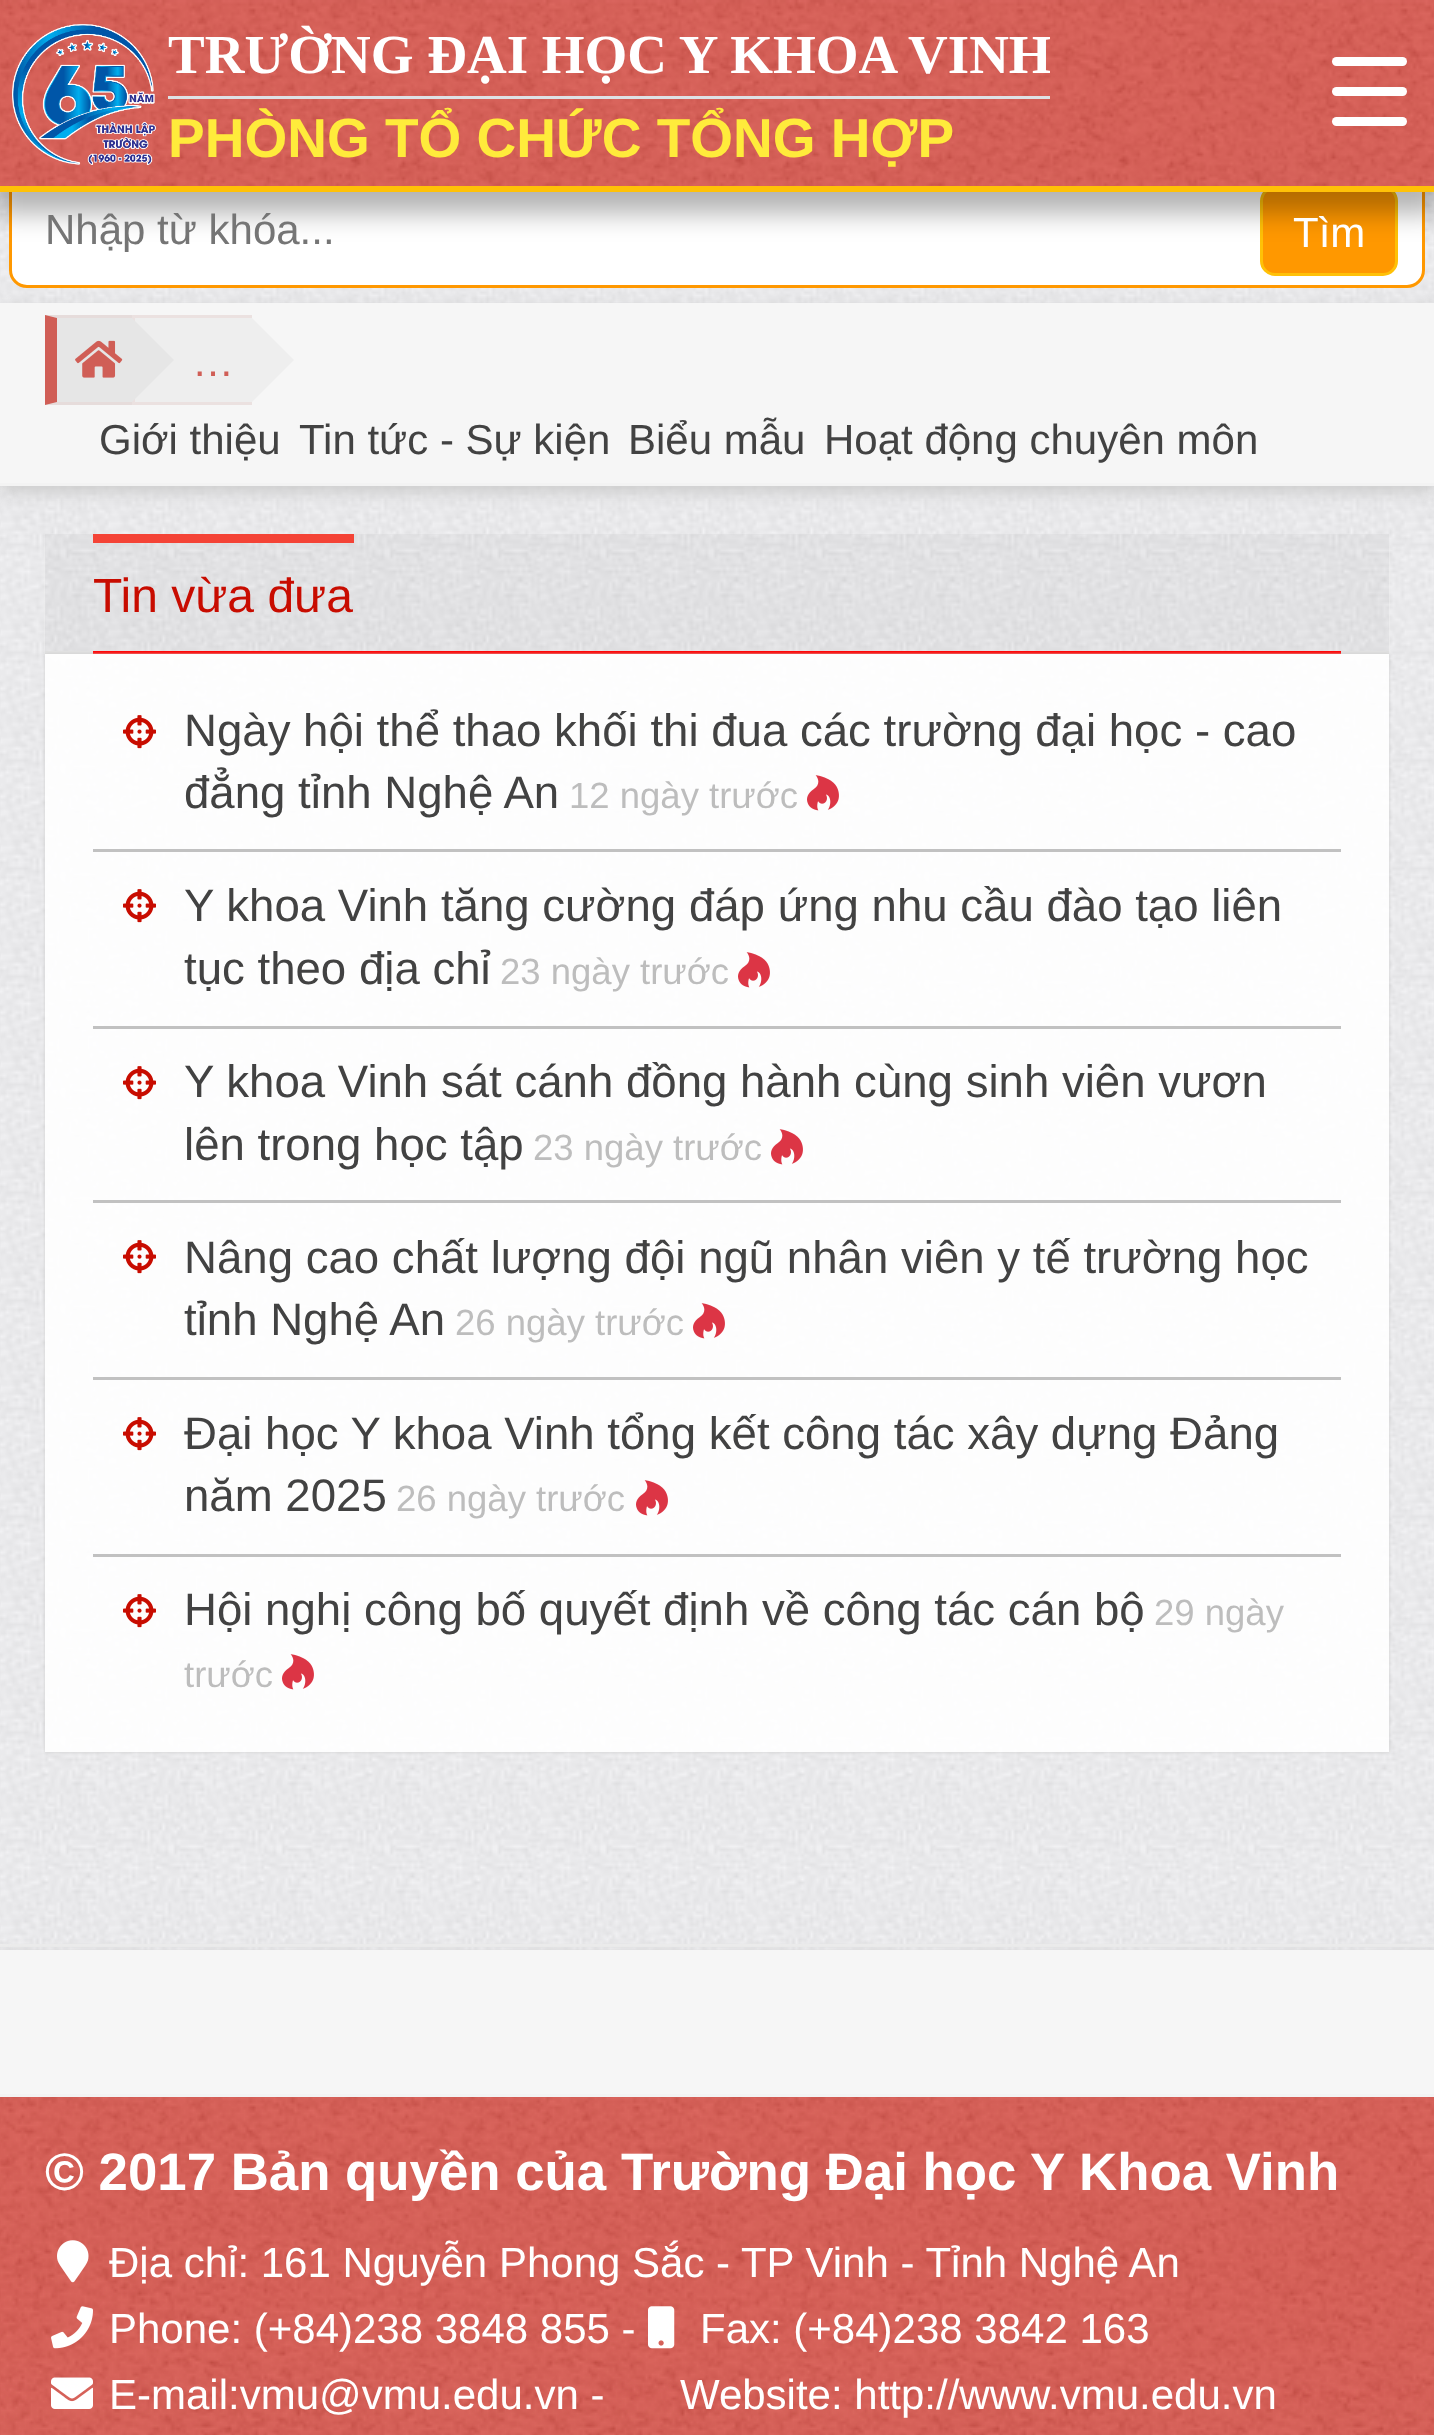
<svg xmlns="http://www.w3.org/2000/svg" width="1434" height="2435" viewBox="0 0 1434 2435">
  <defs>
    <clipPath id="clip1"><rect x="168" y="9" width="882" height="171"/></clipPath>
    <clipPath id="clip2"><rect x="45" y="204" width="1224" height="48"/></clipPath>
    <clipPath id="clip3"><path d="M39 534H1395V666H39ZM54 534H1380C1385 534 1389 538 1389 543V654H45V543C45 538 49 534 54 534Z" clip-rule="evenodd"/></clipPath>
    <clipPath id="clip4"><path d="M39 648H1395V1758H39ZM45 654H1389V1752H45Z" clip-rule="evenodd"/></clipPath>
  </defs>
  <rect width="100%" height="100%" fill="rgb(255,255,255)"/>
  <image x="0" y="192" width="1434" height="1758" href="pic1.png"/>
  <rect x="0" y="309" width="1434" height="183" fill="rgb(204,204,204)" filter="blur(7.5px)"/>
  <rect x="10.5" y="169.5" width="1413" height="117" rx="16.5" fill="rgb(255,255,255)" stroke="rgb(255,152,0)" stroke-width="3"/>
  <rect x="1261.5" y="187.5" width="135" height="87" rx="13.5" fill="rgb(255,152,0)" stroke="rgb(255,193,7)" stroke-width="3"/>
  <rect x="-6" y="9" width="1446" height="204" fill="rgba(0,0,0,0.3)" filter="blur(13.5px)"/>
  <image x="0" y="0" width="1434" height="186" href="pic2.png"/>
  <rect x="0" y="186" width="1434" height="6" fill="rgb(255,193,7)"/>
  <image x="12" y="24" width="144" height="141" href="pic3.png"/>
  <g clip-path="url(#clip1)">
    <text x="168" y="73" font-family="Liberation Serif" font-size="55" font-weight="bold" fill="rgb(255,255,255)">TRƯỜNG ĐẠI HỌC Y KHOA VINH</text>
  </g>
  <rect x="168" y="96" width="882" height="3" fill="rgb(222,226,230)"/>
  <text x="168" y="157" font-family="Liberation Sans" font-size="55" font-weight="bold" fill="rgb(255,235,59)">PHÒNG TỔ CHỨC TỔNG HỢP</text>
  <rect x="1332" y="57" width="75" height="9" rx="4.5" fill="rgb(255,255,255)"/>
  <rect x="1332" y="87" width="75" height="9" rx="4.5" fill="rgb(255,255,255)"/>
  <rect x="1332" y="117" width="75" height="9" rx="4.5" fill="rgb(255,255,255)"/>
  <g clip-path="url(#clip2)">
    <text x="45" y="244" font-family="Liberation Sans" font-size="42" fill="rgb(117,117,117)">Nhập từ khóa...</text>
  </g>
  <text x="1293" y="247" font-family="Liberation Sans" font-size="42" fill="rgb(255,255,255)">Tìm</text>
  <rect x="0" y="303" width="1434" height="180" fill="rgb(246,246,246)"/>
  <rect x="0" y="483" width="1434" height="3" fill="rgb(243,243,243)"/>
  <rect x="45" y="315" width="87" height="90" fill="rgb(230,230,230)"/>
  <path d="M45 315H132V318H57Z" fill="rgb(230,220,219)"/>
  <path d="M132 405H45L57 402H132Z" fill="rgb(230,220,219)"/>
  <path d="M45 405V315L57 318V402Z" fill="rgb(208,94,86)"/>
  <image x="75" y="340" width="48" height="38" href="pic4.png"/>
  <rect x="132" y="315" width="120" height="90" fill="rgb(238,238,238)"/>
  <path d="M132 315H252V318H135Z" fill="rgb(235,225,224)"/>
  <path d="M252 405H132L135 402H252Z" fill="rgb(235,225,224)"/>
  <path d="M132 405V315L135 318V402Z" fill="rgba(231,202,200,0.36)"/>
  <path d="M132 402V318L174 360Z" fill="rgb(230,230,230)"/>
  <text x="192" y="376" font-family="Liberation Sans" font-size="42" fill="rgb(208,94,86)">…</text>
  <path d="M252 402V318L294 360Z" fill="rgb(238,238,238)"/>
  <g font-family="Liberation Sans" font-size="42" fill="rgb(66,66,66)">
    <text x="99" y="454">Giới thiệu</text>
    <text x="299" y="454">Tin tức - Sự kiện</text>
    <text x="628" y="454">Biểu mẫu</text>
    <text x="824" y="454">Hoạt động chuyên môn</text>
  </g>
  <g clip-path="url(#clip3)">
    <rect x="45" y="540" width="1344" height="120" rx="9" fill="rgb(238,238,238)" filter="blur(1.5px)"/>
  </g>
  <rect x="45" y="534" width="1344" height="117" fill="rgba(0,0,0,0.03)"/>
  <rect x="45" y="651" width="1344" height="3" fill="rgb(224,224,224)"/>
  <rect x="93" y="534" width="261" height="9" fill="rgb(244,67,54)"/>
  <text x="93" y="612" font-family="Liberation Sans" font-size="48" fill="rgb(200,12,0)">Tin vừa đưa</text>
  <rect x="93" y="651" width="1248" height="3" fill="rgb(255,0,0)"/>
  <g clip-path="url(#clip4)">
    <rect x="45" y="654" width="1344" height="1098" fill="rgb(204,204,204)" filter="blur(1.5px)"/>
  </g>
  <rect x="45" y="654" width="1344" height="1098" fill="rgba(255,255,255,0.9)"/>
  <image x="123" y="715" width="33" height="34" href="pic5.png"/>
  <g font-family="Liberation Sans" font-size="45.6" fill="rgb(66,66,66)">
    <text>
      <tspan x="184" y="746">Ngày hội thể thao khối thi đua các trường đại học - cao</tspan>
      <tspan x="184" y="808">đẳng tỉnh Nghệ An</tspan>
    </text>
  </g>
  <text x="569" y="808" font-family="Liberation Sans" font-size="36.5" fill="rgb(189,189,189)">12 ngày trước</text>
  <image x="807" y="775" width="32" height="36" href="pic6.png"/>
  <rect x="93" y="849" width="1248" height="3" fill="rgb(193,193,193)"/>
  <image x="123" y="889" width="33" height="34" href="pic7.png"/>
  <g font-family="Liberation Sans" font-size="45.6" fill="rgb(66,66,66)">
    <text>
      <tspan x="184" y="921">Y khoa Vinh tăng cường đáp ứng nhu cầu đào tạo liên</tspan>
      <tspan x="184" y="984">tục theo địa chỉ</tspan>
    </text>
  </g>
  <text x="500" y="984" font-family="Liberation Sans" font-size="36.5" fill="rgb(189,189,189)">23 ngày trước</text>
  <image x="738" y="952" width="32" height="36" href="pic8.png"/>
  <rect x="93" y="1026" width="1248" height="3" fill="rgb(193,193,193)"/>
  <image x="123" y="1066" width="33" height="34" href="pic9.png"/>
  <g font-family="Liberation Sans" font-size="45.6" fill="rgb(66,66,66)">
    <text>
      <tspan x="184" y="1097">Y khoa Vinh sát cánh đồng hành cùng sinh viên vươn</tspan>
      <tspan x="184" y="1160">lên trong học tập</tspan>
    </text>
  </g>
  <text x="533" y="1160" font-family="Liberation Sans" font-size="36.5" fill="rgb(189,189,189)">23 ngày trước</text>
  <image x="771" y="1129" width="32" height="36" href="pic10.png"/>
  <rect x="93" y="1200" width="1248" height="3" fill="rgb(193,193,193)"/>
  <image x="123" y="1240" width="33" height="34" href="pic11.png"/>
  <g font-family="Liberation Sans" font-size="45.6" fill="rgb(66,66,66)">
    <text>
      <tspan x="184" y="1273">Nâng cao chất lượng đội ngũ nhân viên y tế trường học</tspan>
      <tspan x="184" y="1335">tỉnh Nghệ An</tspan>
    </text>
  </g>
  <text x="455" y="1335" font-family="Liberation Sans" font-size="36.5" fill="rgb(189,189,189)">26 ngày trước</text>
  <image x="693" y="1303" width="32" height="36" href="pic12.png"/>
  <rect x="93" y="1377" width="1248" height="3" fill="rgb(193,193,193)"/>
  <image x="123" y="1417" width="33" height="34" href="pic13.png"/>
  <g font-family="Liberation Sans" font-size="45.6" fill="rgb(66,66,66)">
    <text>
      <tspan x="184" y="1449">Đại học Y khoa Vinh tổng kết công tác xây dựng Đảng</tspan>
      <tspan x="184" y="1511">năm 2025</tspan>
    </text>
  </g>
  <text x="396" y="1511" font-family="Liberation Sans" font-size="36.5" fill="rgb(189,189,189)">26 ngày trước</text>
  <image x="636" y="1480" width="32" height="36" href="pic14.png"/>
  <rect x="93" y="1554" width="1248" height="3" fill="rgb(193,193,193)"/>
  <image x="123" y="1594" width="33" height="34" href="pic15.png"/>
  <text x="184" y="1625" font-family="Liberation Sans" font-size="45.6" fill="rgb(66,66,66)">Hội nghị công bố quyết định về công tác cán bộ</text>
  <g font-family="Liberation Sans" font-size="36.5" fill="rgb(189,189,189)">
    <text x="1154" y="1625">29 ngày</text>
    <text x="184" y="1687">trước</text>
  </g>
  <image x="282" y="1654" width="32" height="36" href="pic16.png"/>
  <rect x="0" y="1944" width="1434" height="3" fill="rgb(238,238,238)"/>
  <rect x="0" y="1956" width="1434" height="147" fill="rgb(204,204,204)" filter="blur(7.5px)"/>
  <rect x="0" y="1950" width="1434" height="144" fill="rgb(246,246,246)"/>
  <rect x="0" y="2094" width="1434" height="3" fill="rgb(243,243,243)"/>
  <image x="0" y="2097" width="1434" height="338" href="pic17.png"/>
  <text x="45" y="2190" font-family="Liberation Sans" font-size="52.8" font-weight="bold" fill="rgb(255,255,255)">© 2017 Bản quyền của Trường Đại học Y Khoa Vinh</text>
  <image x="57" y="2240" width="32" height="43" href="pic18.png"/>
  <text x="109" y="2277" font-family="Liberation Sans" font-size="42" fill="rgb(255,255,255)">Địa chỉ: 161 Nguyễn Phong Sắc - TP Vinh - Tỉnh Nghệ An</text>
  <image x="51" y="2306" width="42" height="43" href="pic19.png"/>
  <text x="109" y="2343" font-family="Liberation Sans" font-size="42" fill="rgb(255,255,255)">Phone: (+84)238 3848 855 -</text>
  <image x="648" y="2306" width="27" height="43" href="pic20.png"/>
  <text x="700" y="2343" font-family="Liberation Sans" font-size="42" fill="rgb(255,255,255)">Fax: (+84)238 3842 163</text>
  <image x="51" y="2377" width="42" height="32" href="pic21.png"/>
  <g font-family="Liberation Sans" font-size="42" fill="rgb(255,255,255)">
    <text x="109" y="2409">E-mail:vmu@vmu.edu.vn -</text>
    <text x="680" y="2409">Website: http://www.vmu.edu.vn</text>
  </g>
</svg>
